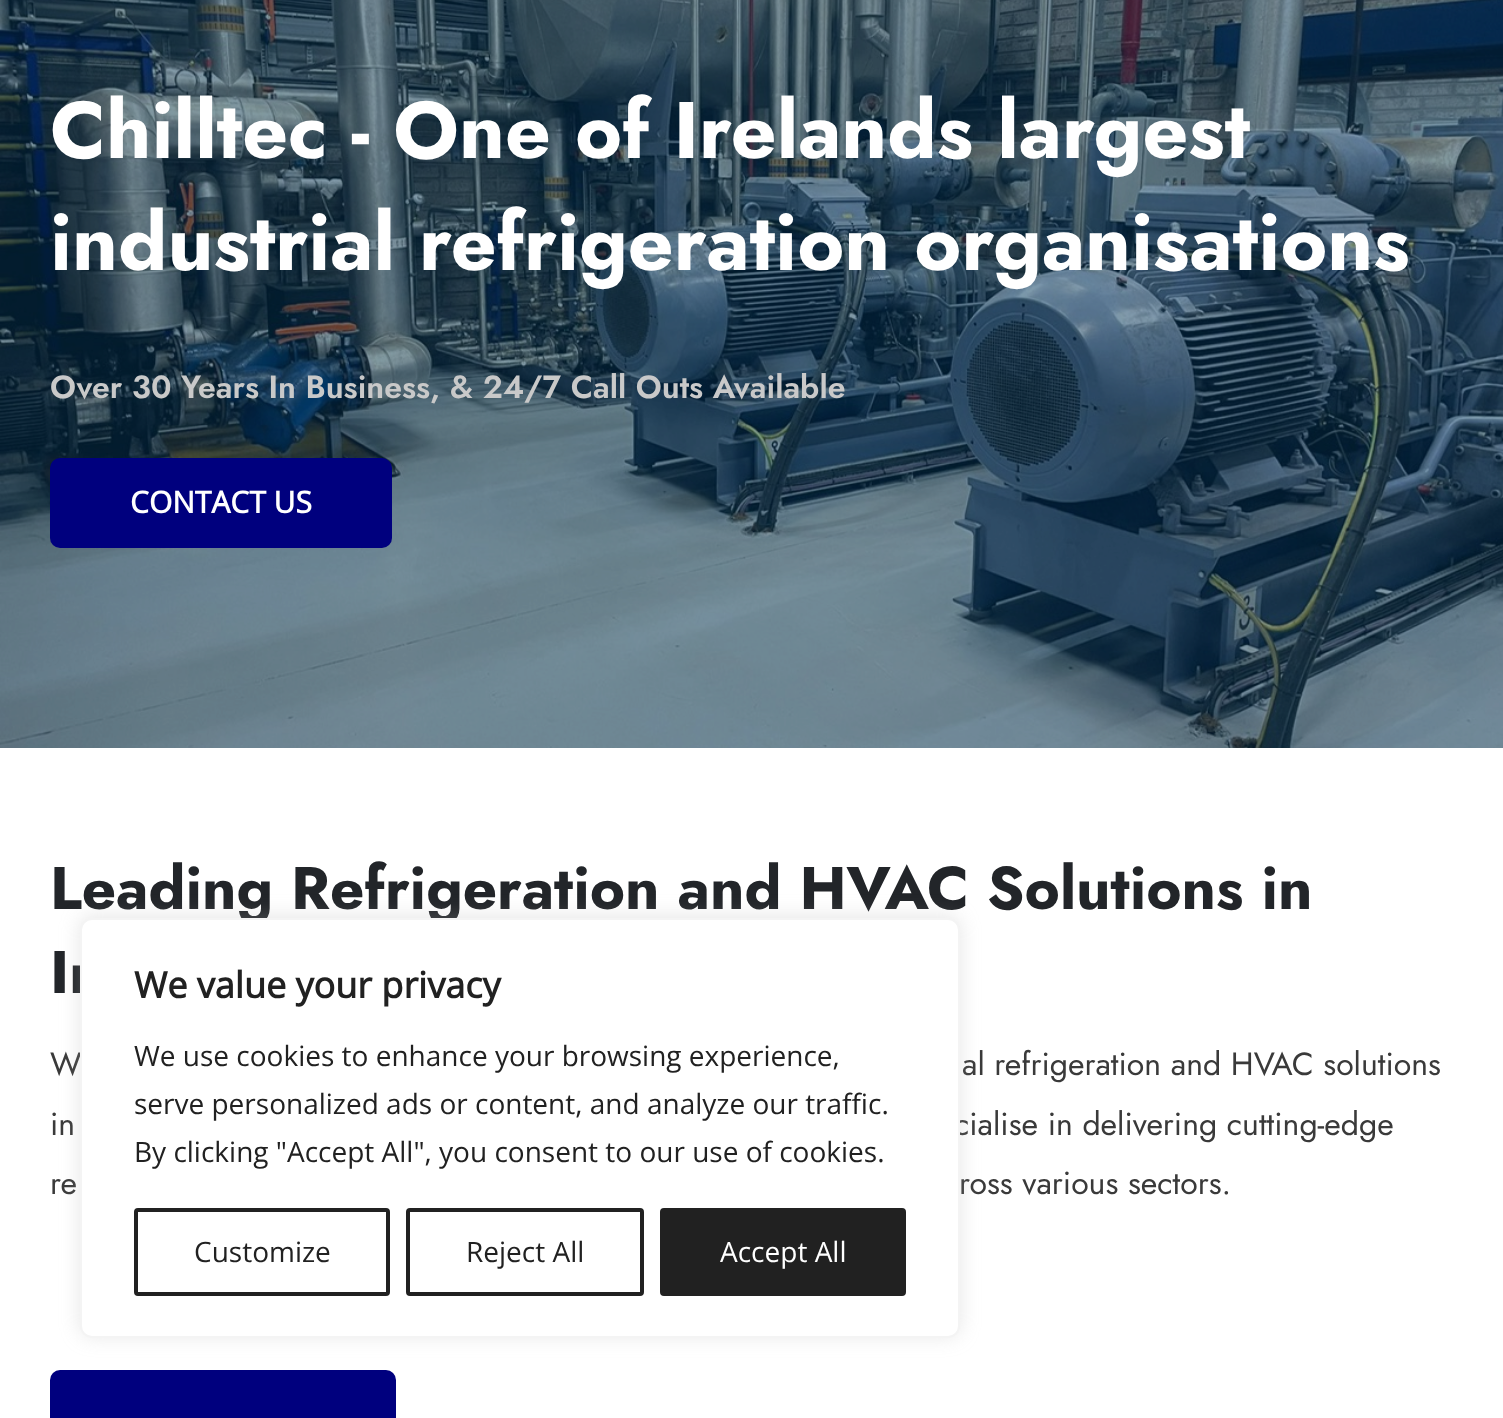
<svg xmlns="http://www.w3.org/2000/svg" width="1503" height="1418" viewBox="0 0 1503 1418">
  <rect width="100%" height="100%" fill="rgb(255,255,255)"/>
  <image x="0" y="0" width="1503" height="748" href="pic1.png"/>
  <g font-family="Jost" font-size="80" font-weight="bold" fill="rgb(255,255,255)">
    <text>
      <tspan x="50" y="158">Chilltec - One of Irelands largest</tspan>
      <tspan x="50" y="270">industrial refrigeration organisations</tspan>
    </text>
  </g>
  <text x="50" y="398" font-family="Jost" font-size="32" font-weight="600" fill="rgb(201,201,201)">Over 30 Years In Business, &amp; 24/7 Call Outs Available</text>
  <rect x="50" y="458" width="342" height="90" rx="10" fill="rgb(0,0,126)"/>
  <text x="130" y="513" font-family="Open Sans" font-size="30" font-weight="bold" fill="rgb(255,255,255)">CONTACT US</text>
  <g font-family="Jost" font-size="60" font-weight="bold" fill="rgb(34,37,41)">
    <text>
      <tspan x="50" y="909">Leading Refrigeration and HVAC Solutions in</tspan>
      <tspan x="50" y="993">Ir</tspan>
    </text>
  </g>
  <g font-family="Jost" font-size="32" fill="rgb(58,58,58)">
    <text x="50" y="1075">W</text>
    <text x="962" y="1075">al refrigeration and HVAC solutions</text>
    <text x="50" y="1135">in</text>
    <text x="954" y="1135">cialise in delivering cutting-edge</text>
    <text x="50" y="1194">re</text>
    <text x="959" y="1194">ross various sectors.</text>
  </g>
  <rect x="50" y="1370" width="346" height="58" rx="10" fill="rgb(0,0,126)"/>
  <rect x="80" y="916" width="880" height="420" rx="12" fill="rgba(172,171,171,0.3)" filter="blur(10px)"/>
  <rect x="81" y="919" width="878" height="418" rx="11" fill="rgb(255,255,255)" stroke="rgb(244,244,244)" stroke-width="2"/>
  <text x="134" y="998" font-family="Open Sans" font-size="36" font-weight="bold" fill="rgb(33,33,33)">We value your privacy</text>
  <g font-family="Open Sans" font-size="28" fill="rgb(33,33,33)">
    <text>
      <tspan x="134" y="1066">We use cookies to enhance your browsing experience,</tspan>
      <tspan x="134" y="1114">serve personalized ads or content, and analyze our traffic.</tspan>
      <tspan x="134" y="1162">By clicking "Accept All", you consent to our use of cookies.</tspan>
    </text>
  </g>
  <rect x="136" y="1210" width="252" height="84" rx="2" fill="none" stroke="rgb(33,33,33)" stroke-width="4"/>
  <text x="194" y="1262" font-family="Open Sans" font-size="28" fill="rgb(33,33,33)">Customize</text>
  <rect x="408" y="1210" width="234" height="84" rx="2" fill="none" stroke="rgb(33,33,33)" stroke-width="4"/>
  <text x="466" y="1262" font-family="Open Sans" font-size="28" fill="rgb(33,33,33)">Reject All</text>
  <rect x="662" y="1210" width="242" height="84" rx="2" fill="rgb(33,33,33)" stroke="rgb(33,33,33)" stroke-width="4"/>
  <text x="720" y="1262" font-family="Open Sans" font-size="28" fill="rgb(255,255,255)">Accept All</text>
</svg>
